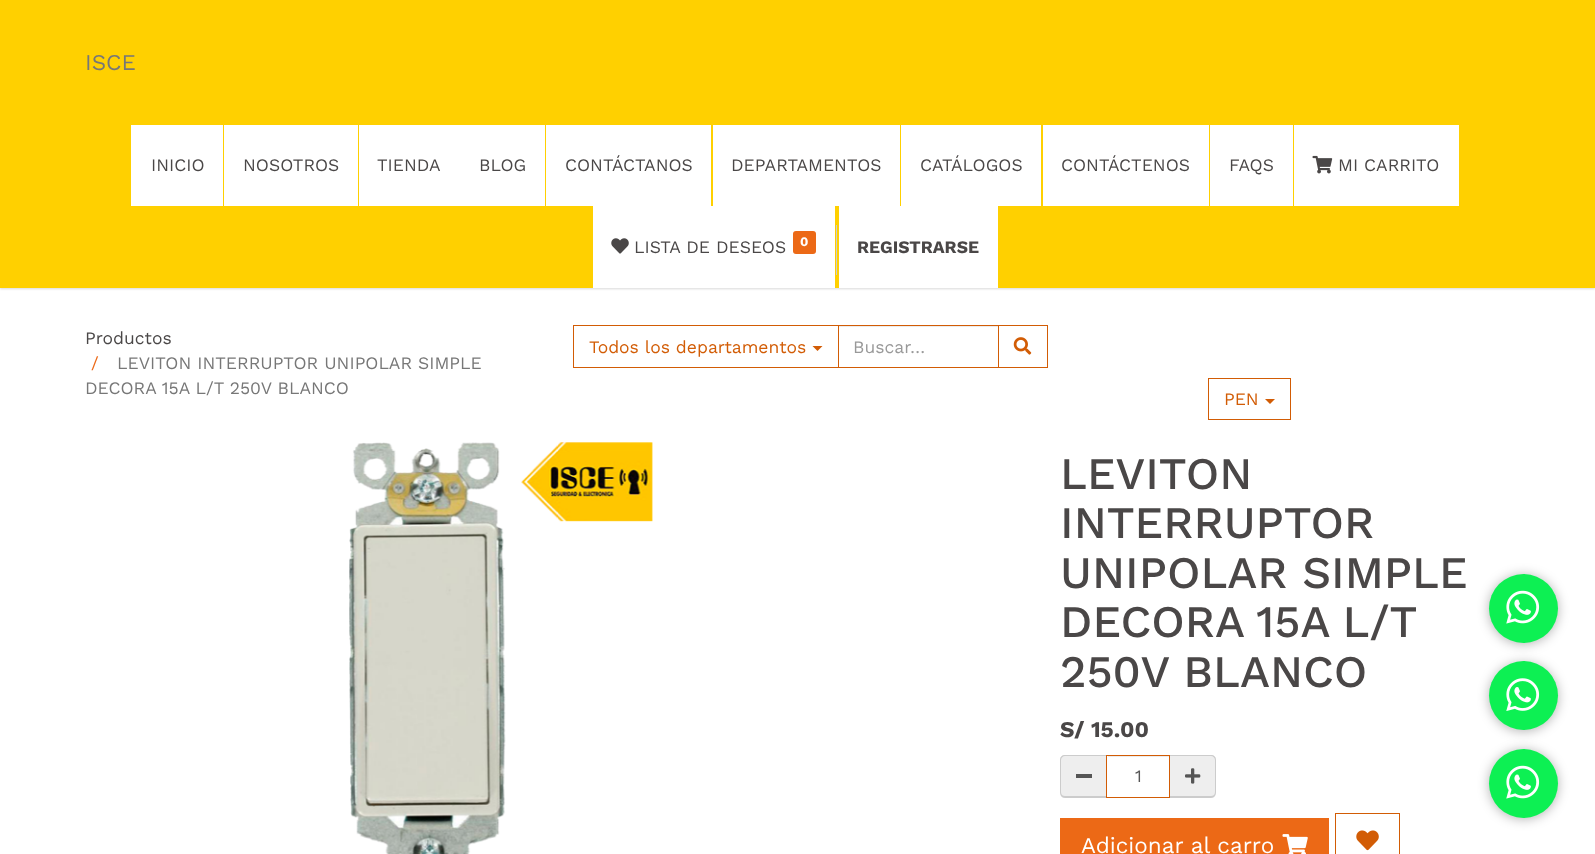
<svg xmlns="http://www.w3.org/2000/svg" width="1595" height="854" viewBox="0 0 1595 854">
  <rect width="100%" height="100%" fill="rgb(255,255,255)"/>
  <rect x="0" y="1" width="1595" height="288" fill="rgba(0,0,0,0.15)" filter="blur(1px)"/>
  <rect x="0" y="0" width="1595" height="288" fill="rgb(255,208,0)"/>
  <text x="85" y="70" font-family="Work Sans" font-size="22.5" fill="rgb(119,119,119)">ISCE</text>
  <rect x="131" y="125" width="92" height="81" fill="rgb(255,255,255)"/>
  <text x="151" y="171" font-family="Work Sans" font-size="17.5" fill="rgb(74,71,71)">INICIO</text>
  <rect x="224" y="125" width="134" height="81" fill="rgb(255,255,255)"/>
  <text x="243" y="171" font-family="Work Sans" font-size="17.5" fill="rgb(74,71,71)">NOSOTROS</text>
  <rect x="359" y="125" width="186" height="81" fill="rgb(255,255,255)"/>
  <g font-family="Work Sans" font-size="17.5" fill="rgb(74,71,71)">
    <text x="377" y="171">TIENDA</text>
    <text x="479" y="171">BLOG</text>
  </g>
  <rect x="546" y="125" width="165" height="81" fill="rgb(255,255,255)"/>
  <text x="565" y="171" font-family="Work Sans" font-size="17.5" fill="rgb(74,71,71)">CONTÁCTANOS</text>
  <rect x="713" y="125" width="187" height="81" fill="rgb(255,255,255)"/>
  <text x="731" y="171" font-family="Work Sans" font-size="17.5" fill="rgb(74,71,71)">DEPARTAMENTOS</text>
  <rect x="901" y="125" width="140" height="81" fill="rgb(255,255,255)"/>
  <text x="920" y="171" font-family="Work Sans" font-size="17.5" fill="rgb(74,71,71)">CATÁLOGOS</text>
  <rect x="1043" y="125" width="166" height="81" fill="rgb(255,255,255)"/>
  <text x="1061" y="171" font-family="Work Sans" font-size="17.5" fill="rgb(74,71,71)">CONTÁCTENOS</text>
  <rect x="1210" y="125" width="83" height="81" fill="rgb(255,255,255)"/>
  <text x="1229" y="171" font-family="Work Sans" font-size="17.5" fill="rgb(74,71,71)">FAQS</text>
  <rect x="1294" y="125" width="165" height="81" fill="rgb(255,255,255)"/>
  <image x="1312" y="155" width="21" height="19" href="pic1.png"/>
  <text x="1338" y="171" font-family="Work Sans" font-size="17.5" fill="rgb(74,71,71)">MI CARRITO</text>
  <rect x="593" y="206" width="242" height="82" fill="rgb(255,255,255)"/>
  <image x="611" y="238" width="18" height="16" href="pic2.png"/>
  <text x="634" y="253" font-family="Work Sans" font-size="17.5" fill="rgb(74,71,71)">LISTA DE DESEOS</text>
  <rect x="793" y="231" width="23" height="23" rx="3" fill="rgb(236,105,22)"/>
  <text x="800" y="246" font-family="Work Sans" font-size="13" font-weight="bold" fill="rgb(255,255,255)">0</text>
  <rect x="836" y="225" width="1" height="50" fill="rgb(204,204,204)"/>
  <rect x="839" y="206" width="159" height="82" fill="rgb(255,255,255)"/>
  <text x="857" y="253" font-family="Work Sans" font-size="17.5" font-weight="bold" fill="rgb(74,71,71)">REGISTRARSE</text>
  <rect x="1489" y="750" width="69" height="69" rx="34.5" fill="rgba(0,0,0,0.3)" filter="blur(6px)"/>
  <circle cx="1523.5" cy="783.5" r="34.5" fill="rgb(13,240,83)"/>
  <rect x="1489" y="663" width="69" height="68" rx="34" fill="rgba(0,0,0,0.3)" filter="blur(6px)"/>
  <circle cx="1523.5" cy="695.5" r="34.5" fill="rgb(13,240,83)"/>
  <rect x="1489" y="575" width="69" height="69" rx="34.5" fill="rgba(0,0,0,0.3)" filter="blur(6px)"/>
  <circle cx="1523.5" cy="608.5" r="34.5" fill="rgb(13,240,83)"/>
  <image x="1506" y="590" width="34" height="34" href="pic3.png"/>
  <image x="1506" y="678" width="34" height="33" href="pic4.png"/>
  <image x="1506" y="765" width="34" height="34" href="pic3.png"/>
  <text x="85" y="344" font-family="Work Sans" font-size="17.5" fill="rgb(74,71,71)">Productos</text>
  <text x="91" y="369" font-family="Work Sans" font-size="17.5" fill="rgb(236,105,22)">/</text>
  <g font-family="Work Sans" font-size="17.5" fill="rgb(119,119,119)">
    <text x="117" y="369">LEVITON INTERRUPTOR UNIPOLAR SIMPLE</text>
    <text x="85" y="394">DECORA 15A L/T 250V BLANCO</text>
  </g>
  <rect x="573.5" y="325.5" width="265" height="42" fill="none" stroke="rgb(210,92,5)"/>
  <text x="589" y="353" font-family="Work Sans" font-size="17.5" fill="rgb(210,92,5)">Todos los departamentos</text>
  <path d="M812.5 346H822.5L817.5 351Z" fill="rgb(210,92,5)"/>
  <rect x="839" y="326" width="159" height="1" fill="rgb(236,236,236)"/>
  <rect x="838.5" y="325.5" width="160" height="42" fill="none" stroke="rgb(210,92,5)"/>
  <text x="853" y="353" font-family="Work Sans" font-size="17.5" fill="rgb(153,153,153)">Buscar…</text>
  <rect x="998.5" y="325.5" width="49" height="42" fill="none" stroke="rgb(210,92,5)"/>
  <image x="1013" y="337" width="19" height="18" href="pic5.png"/>
  <rect x="1208.5" y="378.5" width="82" height="41" fill="none" stroke="rgb(210,92,5)"/>
  <text x="1224" y="405" font-family="Work Sans" font-size="17.5" fill="rgb(210,92,5)">PEN</text>
  <path d="M1265 399H1275L1270 404Z" fill="rgb(210,92,5)"/>
  <image x="349" y="442" width="304" height="412" href="pic6.png"/>
  <g font-family="Work Sans" font-size="45" font-weight="500" fill="rgb(74,71,71)">
    <text>
      <tspan x="1060" y="489">LEVITON</tspan>
      <tspan x="1060" y="538">INTERRUPTOR</tspan>
      <tspan x="1060" y="588">UNIPOLAR SIMPLE</tspan>
      <tspan x="1060" y="637" word-spacing="-1">DECORA 15A L/T</tspan>
      <tspan x="1060" y="687">250V BLANCO</tspan>
    </text>
  </g>
  <text x="1060" y="737" font-family="Work Sans" font-size="22.5" font-weight="bold" fill="rgb(74,71,71)">S/ 15.00</text>
  <path d="M1065 755H1106V798H1065C1062 798 1060 796 1060 793V760C1060 757 1062 755 1065 755Z" fill="rgb(238,238,238)"/>
  <path d="M1065 755H1106V798H1065C1062 798 1060 795 1060 792V760C1060 757 1062 755 1065 755ZM1065 756H1106V796H1065C1063 796 1061 795 1061 792V760C1061 758 1063 756 1065 756Z" fill="rgb(204,204,204)" fill-rule="evenodd"/>
  <rect x="1076" y="774" width="16" height="4" fill="rgb(85,85,85)"/>
  <rect x="1108" y="756" width="61" height="1" fill="rgb(236,236,236)"/>
  <rect x="1106.5" y="755.5" width="63" height="42" fill="none" stroke="rgb(210,92,5)"/>
  <text x="1135" y="782" font-family="Work Sans" font-size="17.5" fill="rgb(85,85,85)">1</text>
  <path d="M1170 755H1211C1214 755 1216 757 1216 760V793C1216 796 1214 798 1211 798H1170Z" fill="rgb(238,238,238)"/>
  <path d="M1170 755H1211C1214 755 1216 757 1216 760V792C1216 795 1214 798 1211 798H1170ZM1170 756H1211C1213 756 1215 758 1215 760V792C1215 795 1213 796 1211 796H1170Z" fill="rgb(204,204,204)" fill-rule="evenodd"/>
  <image x="1185" y="768" width="16" height="16" href="pic7.png"/>
  <rect x="1060" y="818" width="269" height="36" fill="rgb(236,105,22)"/>
  <text x="1081" y="853" font-family="Work Sans" font-size="22.5" fill="rgb(255,255,255)">Adicionar al carro</text>
  <image x="1282" y="834" width="26" height="20" href="pic8.png"/>
  <rect x="1335.5" y="813.5" width="64" height="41" fill="none" stroke="rgb(210,92,5)"/>
  <image x="1356" y="830" width="23" height="21" href="pic9.png"/>
</svg>
